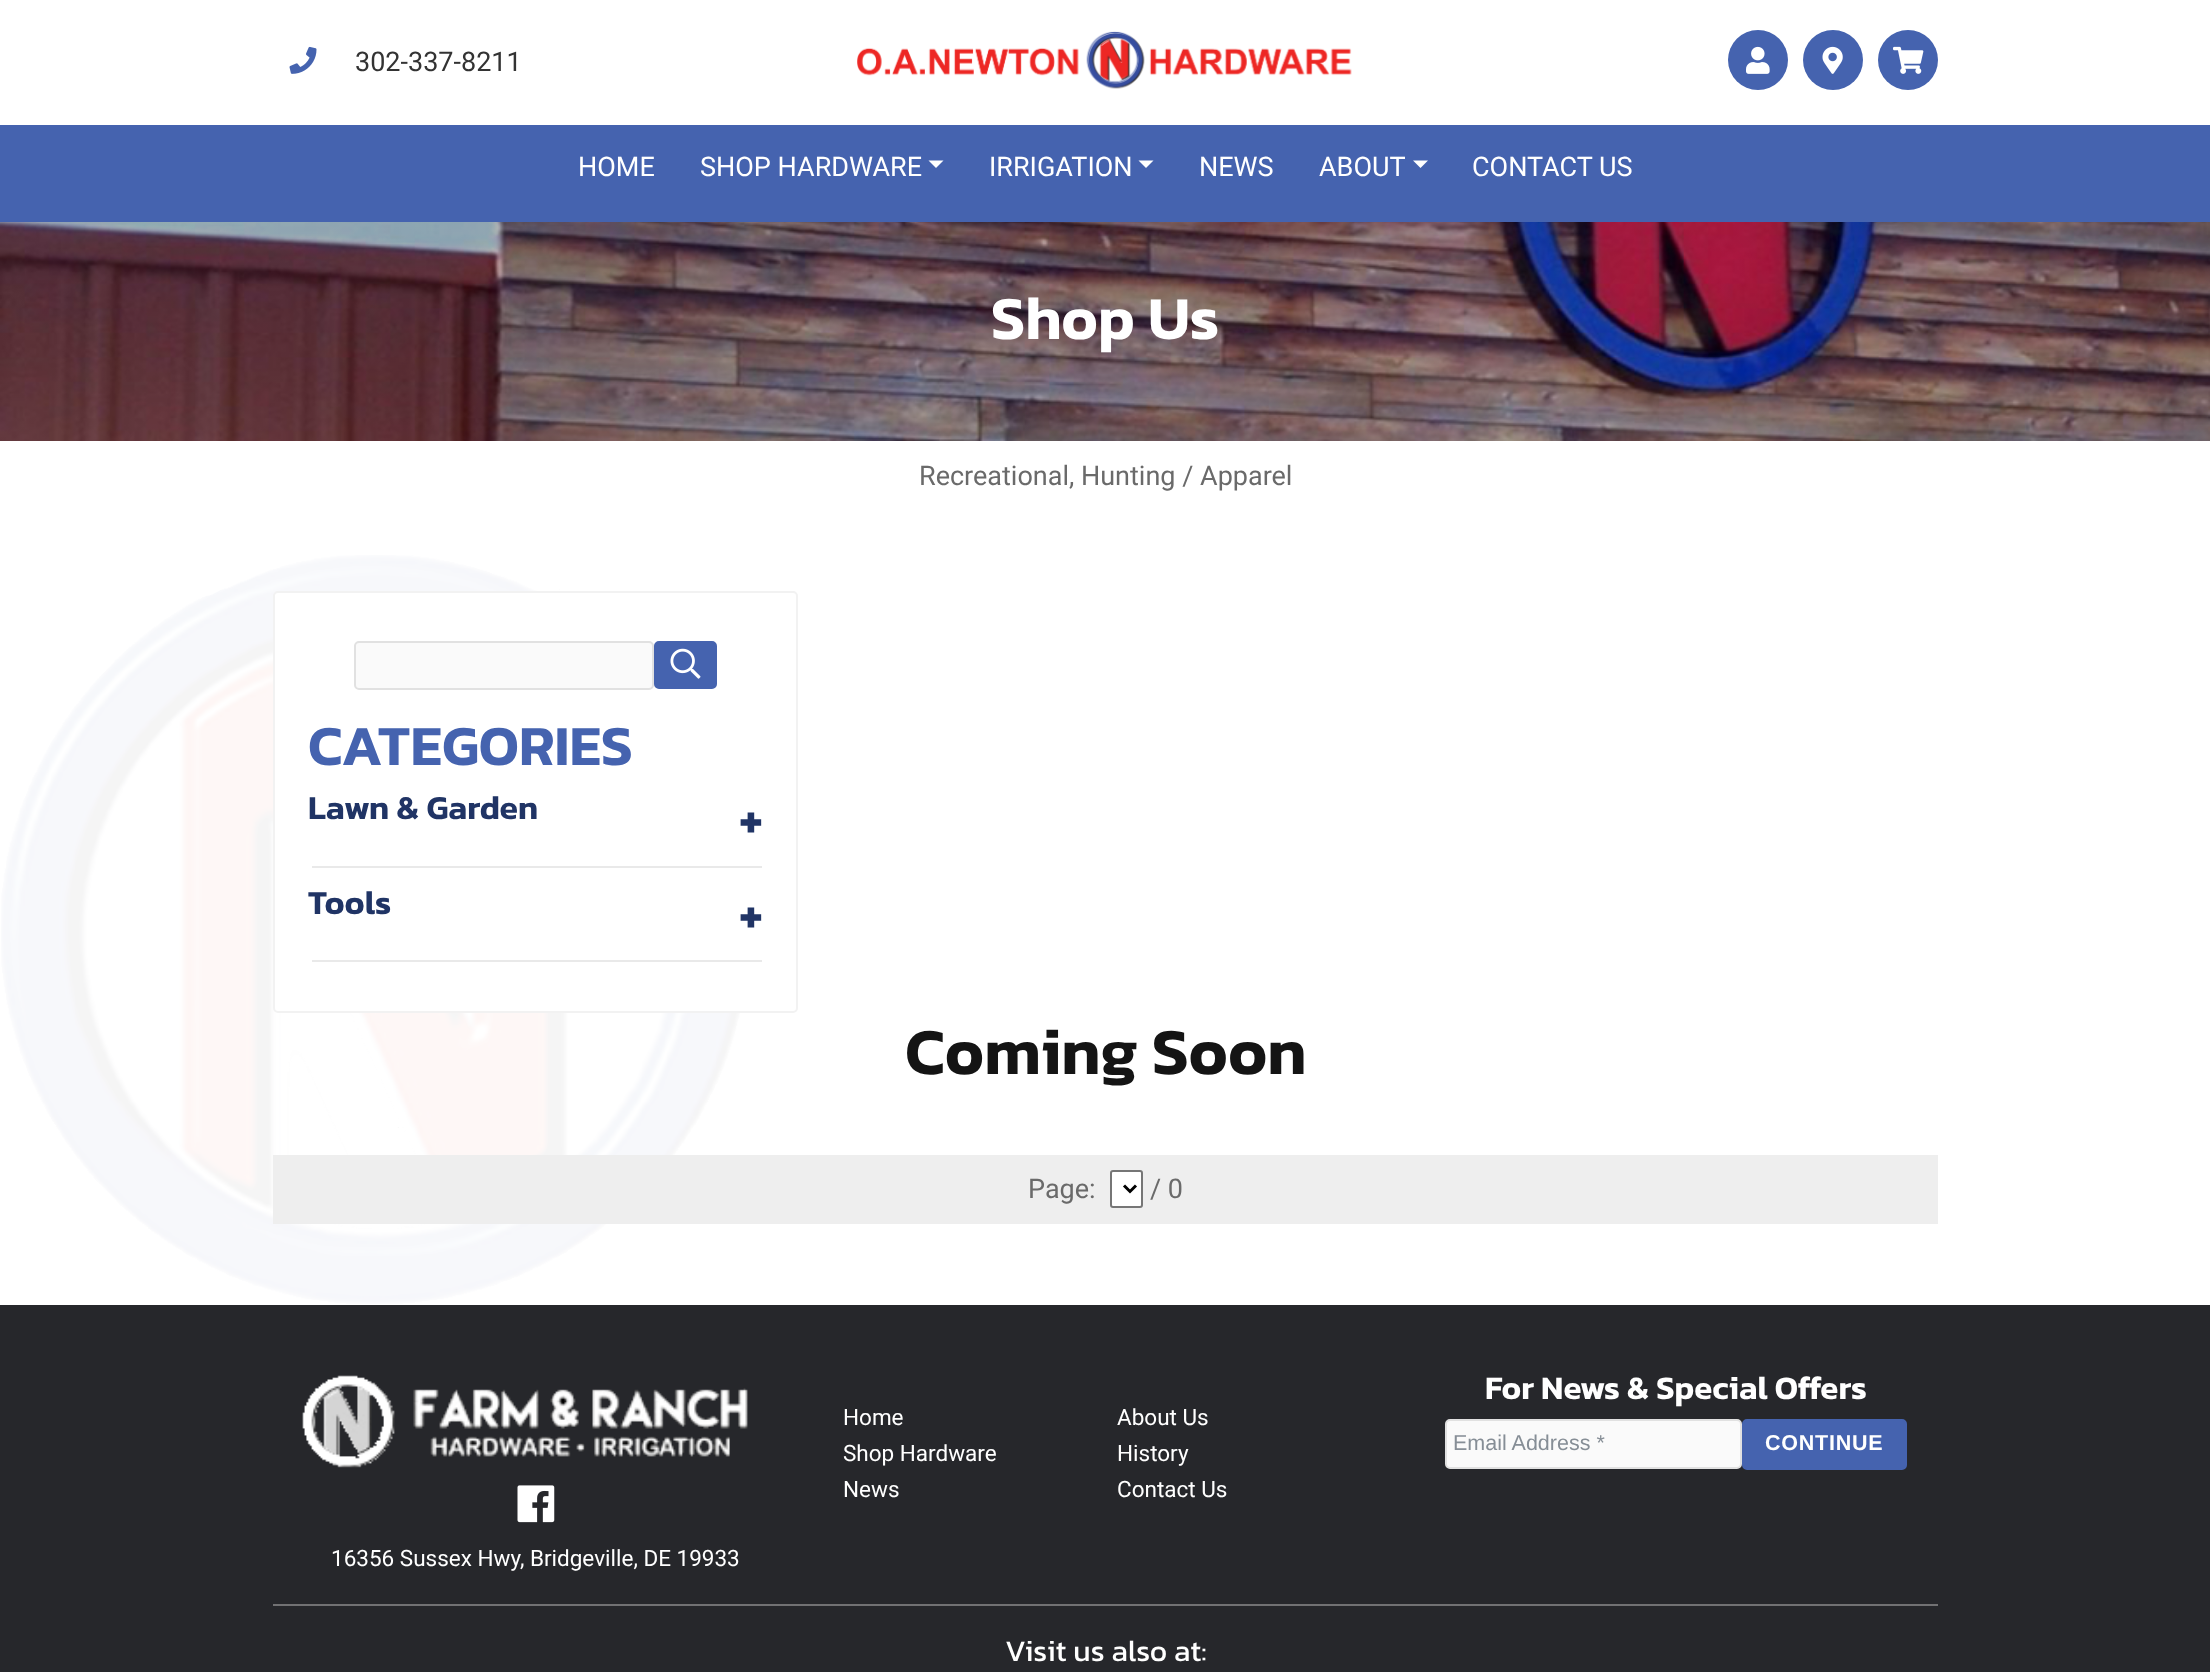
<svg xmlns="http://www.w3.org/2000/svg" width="2210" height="1672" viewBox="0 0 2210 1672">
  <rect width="100%" height="100%" fill="rgb(255,255,255)"/>
  <image x="289" y="46" width="28" height="28" href="pic1.png"/>
  <text x="355" y="71" font-family="Roboto" font-size="27" fill="rgb(51,51,51)">302-337-8211</text>
  <image x="857" y="31" width="495" height="58" href="pic2.png"/>
  <circle cx="1758" cy="60" r="30" fill="rgb(69,99,175)"/>
  <image x="1746" y="46" width="24" height="28" href="pic3.png"/>
  <circle cx="1833" cy="60" r="30" fill="rgb(69,99,175)"/>
  <image x="1822" y="46" width="21" height="28" href="pic4.png"/>
  <circle cx="1908" cy="60" r="30" fill="rgb(69,99,175)"/>
  <image x="1893" y="46" width="31" height="28" href="pic5.png"/>
  <rect x="0" y="125" width="2210" height="97" fill="rgb(69,99,175)"/>
  <g font-family="Roboto" font-size="27" fill="rgb(255,255,255)">
    <text x="578" y="176">HOME</text>
    <text x="700" y="176">SHOP HARDWARE</text>
  </g>
  <path d="M928.5 160.5H943.5L936 168Z" fill="rgb(255,255,255)"/>
  <text x="989" y="176" font-family="Roboto" font-size="27" fill="rgb(255,255,255)">IRRIGATION</text>
  <path d="M1138.5 160.5H1153.5L1146 168Z" fill="rgb(255,255,255)"/>
  <g font-family="Roboto" font-size="27" fill="rgb(255,255,255)">
    <text x="1199" y="176">NEWS</text>
    <text x="1319" y="176">ABOUT</text>
  </g>
  <path d="M1413 160.5H1428L1420.5 168Z" fill="rgb(255,255,255)"/>
  <text x="1472" y="176" font-family="Roboto" font-size="27" fill="rgb(255,255,255)">CONTACT US</text>
  <image x="1" y="555" width="739" height="749" href="pic6.png"/>
  <image x="0" y="222" width="2210" height="219" href="pic7.png"/>
  <text x="991" y="339" font-family="Kanit" font-size="61.5" font-weight="600" fill="rgb(255,255,255)">Shop Us</text>
  <text x="919" y="485" font-family="Roboto" font-size="27" fill="rgb(106,106,106)">Recreational, Hunting / Apparel</text>
  <rect x="274" y="592" width="523" height="420" rx="4" fill="rgb(255,255,255)" stroke="rgb(242,242,242)" stroke-width="2"/>
  <rect x="355" y="642" width="298" height="47" rx="4" fill="rgb(250,250,250)" stroke="rgb(225,225,225)" stroke-width="2"/>
  <rect x="655" y="642" width="61" height="46" rx="4" fill="rgb(69,99,175)" stroke="rgb(69,99,175)" stroke-width="2"/>
  <image x="670" y="648" width="31" height="31" href="pic8.png"/>
  <text x="308" y="765" font-family="Kanit" font-size="57" font-weight="600" fill="rgb(69,99,175)">CATEGORIES</text>
  <rect x="312" y="866" width="450" height="2" fill="rgb(233,233,233)"/>
  <text x="308" y="819" font-family="Kanit" font-size="33.75" font-weight="600" fill="rgb(32,52,101)">Lawn &amp; Garden</text>
  <text x="739" y="837" font-family="Kanit" font-size="52" font-weight="600" fill="rgb(32,52,101)">+</text>
  <rect x="312" y="960" width="450" height="2" fill="rgb(233,233,233)"/>
  <text x="308" y="914" font-family="Kanit" font-size="33.75" font-weight="600" fill="rgb(32,52,101)">Tools</text>
  <text x="739" y="932" font-family="Kanit" font-size="52" font-weight="600" fill="rgb(32,52,101)">+</text>
  <text x="905" y="1074" font-family="Kanit" font-size="66" font-weight="600" fill="rgb(20,20,20)">Coming Soon</text>
  <rect x="273" y="1155" width="1665" height="69" fill="rgb(238,238,238)"/>
  <text x="1028" y="1198" font-family="Roboto" font-size="27" fill="rgb(106,106,106)">Page:</text>
  <rect x="1111" y="1171" width="31" height="36" rx="2" fill="rgb(255,255,255)" stroke="rgb(118,118,118)" stroke-width="2"/>
  <path d="M1124 1185.5L1130 1191.5L1136 1185.5" fill="none" stroke="rgb(0,0,0)" stroke-width="3"/>
  <text x="1150" y="1198" font-family="Roboto" font-size="27" fill="rgb(106,106,106)">/ 0</text>
  <rect x="0" y="1305" width="2210" height="367" fill="rgb(38,39,43)"/>
  <g font-family="Roboto" font-size="22.5" fill="rgb(255,255,255)">
    <text x="843" y="1425">Home</text>
    <text x="1117" y="1425">About Us</text>
    <text x="843" y="1461">Shop Hardware</text>
    <text x="1117" y="1461">History</text>
    <text x="843" y="1497">News</text>
    <text x="1117" y="1497">Contact Us</text>
  </g>
  <text x="1485" y="1399" font-family="Kanit" font-size="33" font-weight="600" fill="rgb(255,255,255)">For News &amp; Special Offers</text>
  <rect x="1446" y="1420" width="295" height="48" rx="4" fill="rgb(250,250,250)" stroke="rgb(225,225,225)" stroke-width="2"/>
  <text x="1453" y="1450" font-family="Liberation Sans" font-size="21.5" fill="rgb(134,142,150)">Email Address *</text>
  <rect x="1743" y="1420" width="163" height="49" rx="4" fill="rgb(69,99,175)" stroke="rgb(69,99,175)" stroke-width="2"/>
  <text x="1765" y="1450" font-family="Liberation Sans" font-size="21.5" font-weight="bold" letter-spacing="0.75" fill="rgb(255,255,255)">CONTINUE</text>
  <image x="302" y="1375" width="446" height="93" href="pic9.png"/>
  <image x="517" y="1485" width="38" height="38" href="pic10.png"/>
  <text x="331" y="1566" font-family="Roboto" font-size="22.5" fill="rgb(255,255,255)">16356 Sussex Hwy, Bridgeville, DE 19933</text>
  <rect x="273" y="1604" width="1665" height="2" fill="rgb(113,113,115)"/>
  <text x="1005" y="1661" font-family="Kanit" font-size="30" fill="rgb(255,255,255)">Visit us also at:</text>
</svg>
